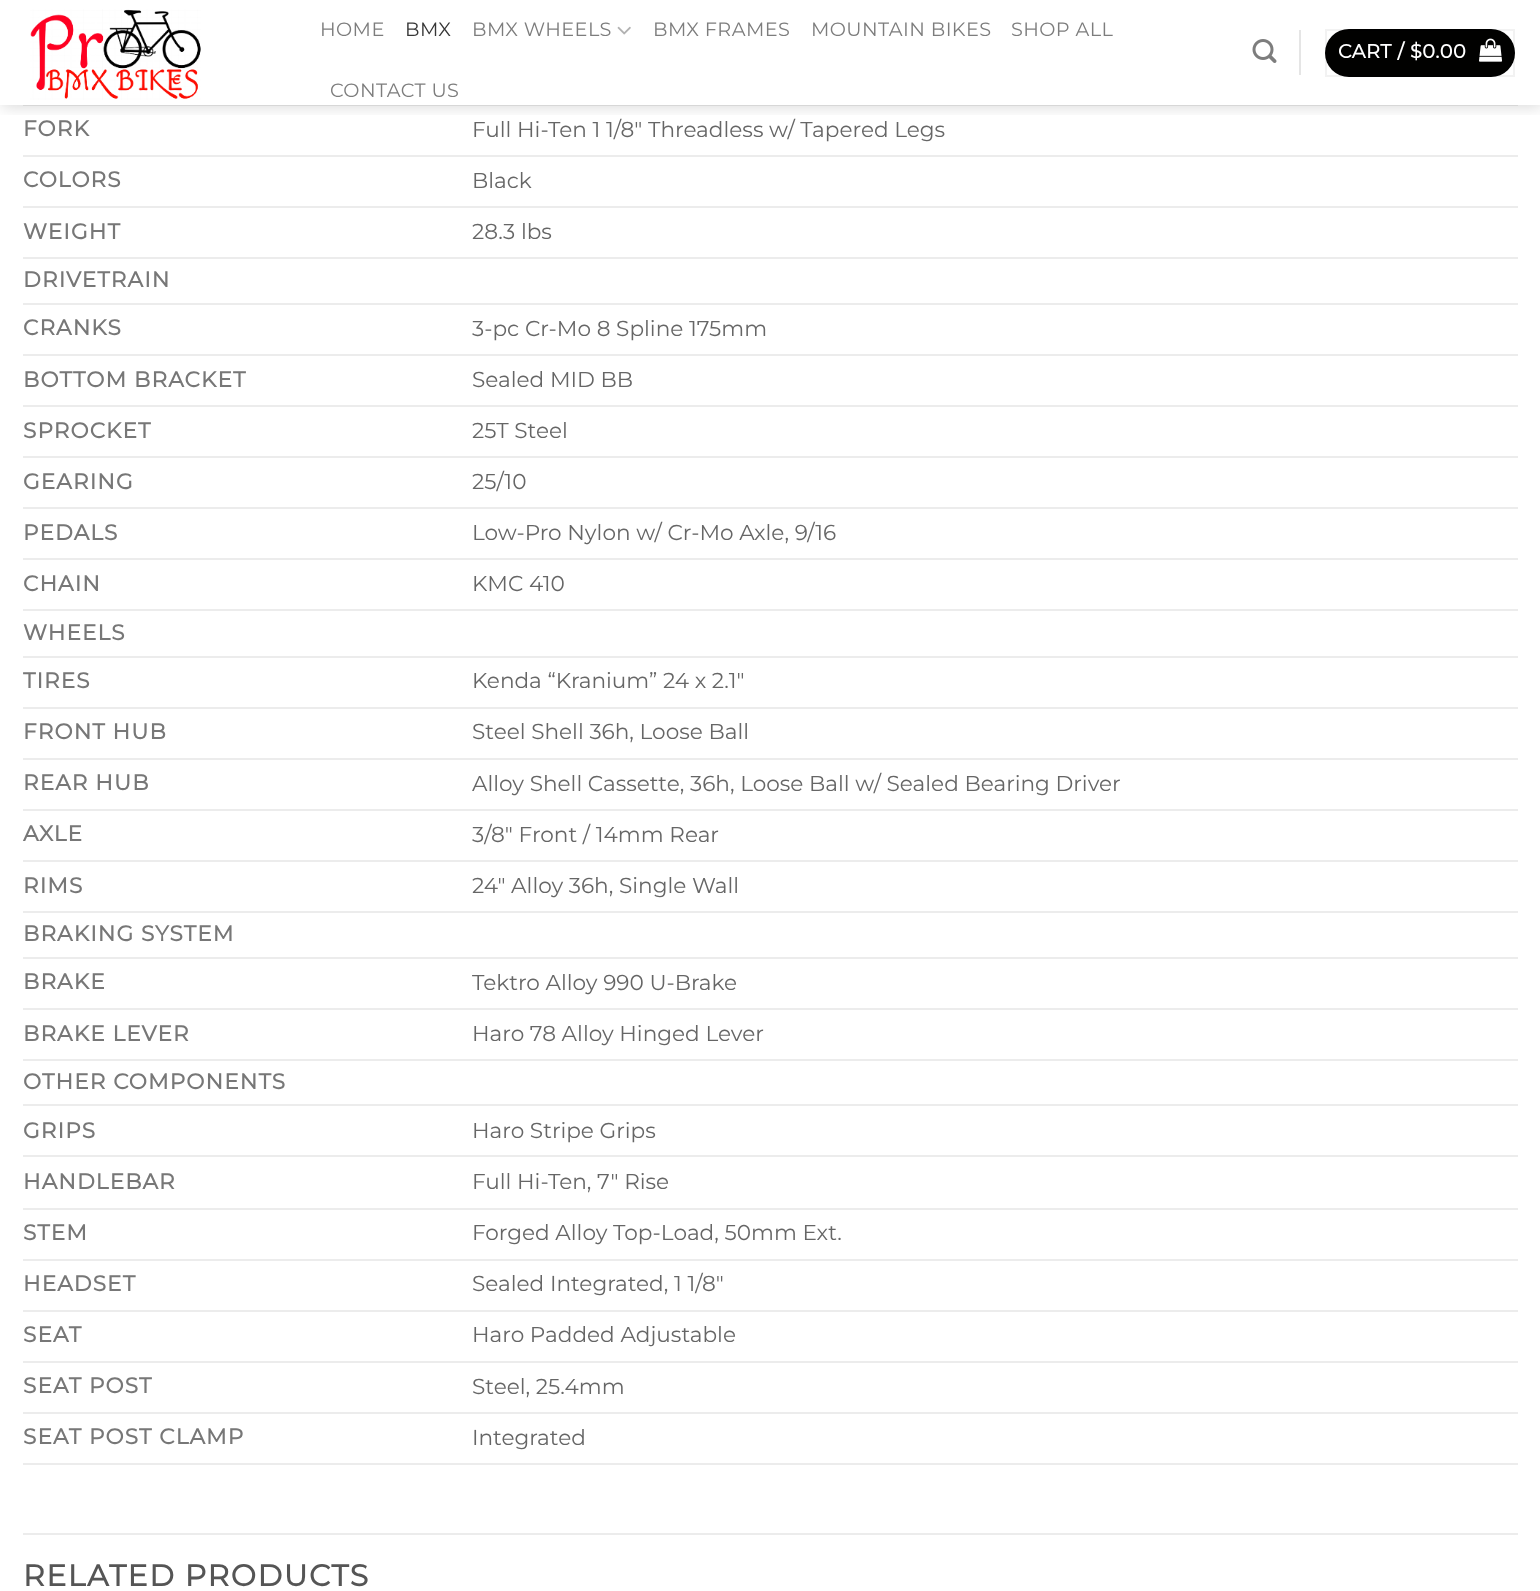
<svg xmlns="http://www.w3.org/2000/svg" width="1540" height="1591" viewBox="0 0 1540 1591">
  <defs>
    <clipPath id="clip1"><rect x="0" y="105" width="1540" height="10"/></clipPath>
  </defs>
  <rect width="100%" height="100%" fill="rgb(255,255,255)"/>
  <rect x="23" y="105" width="1495" height="1" fill="rgb(236,236,236)"/>
  <g clip-path="url(#clip1)">
    <rect x="2" y="2" width="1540" height="105" fill="rgba(0,0,0,0.15)" filter="blur(7.5px)"/>
  </g>
  <image x="30" y="9" width="171" height="91" href="pic1.png"/>
  <text x="320" y="36" font-family="Montserrat" font-size="19.25" font-weight="100" letter-spacing="0.4" fill="rgb(125,125,125)">HOME</text>
  <text x="405" y="36" font-family="Montserrat" font-size="19.25" font-weight="100" letter-spacing="0.4" fill="rgb(54,54,54)">BMX</text>
  <text x="472" y="36" font-family="Montserrat" font-size="19.25" font-weight="100" letter-spacing="0.4" fill="rgb(125,125,125)">BMX WHEELS</text>
  <image x="617" y="26" width="14" height="9" href="pic2.png"/>
  <g font-family="Montserrat" font-size="19.25" font-weight="100" letter-spacing="0.4" fill="rgb(125,125,125)">
    <text x="653" y="36">BMX FRAMES</text>
    <text x="811" y="36">MOUNTAIN BIKES</text>
    <text x="1011" y="36">SHOP ALL</text>
    <text x="330" y="97">CONTACT US</text>
  </g>
  <image x="1252" y="39" width="25" height="24" href="pic3.png"/>
  <rect x="1299" y="30" width="2" height="45" fill="rgb(229,229,229)"/>
  <rect x="1325" y="29" width="190" height="48" rx="24" fill="rgb(1,1,0)"/>
  <rect x="1326" y="30" width="188" height="46" fill="none" stroke="rgba(0,0,0,0.05)" stroke-width="2"/>
  <text x="1338" y="58" font-family="Montserrat" font-size="19.25" font-weight="bold" letter-spacing="0.5" fill="rgb(255,255,255)">CART / $0.00</text>
  <image x="1479" y="38" width="23" height="24" href="pic4.png"/>
  <rect x="23" y="155" width="1495" height="2" fill="rgb(236,236,236)"/>
  <text x="23" y="136" font-family="Montserrat" font-size="21.6" font-weight="bold" letter-spacing="1.1" fill="rgb(119,119,119)">FORK</text>
  <text x="472" y="137" font-family="Montserrat" font-size="21.6" font-weight="100" fill="rgb(102,102,102)">Full Hi-Ten 1 1/8″ Threadless w/ Tapered Legs</text>
  <rect x="23" y="206" width="1495" height="2" fill="rgb(236,236,236)"/>
  <text x="23" y="187" font-family="Montserrat" font-size="21.6" font-weight="bold" letter-spacing="1.1" fill="rgb(119,119,119)">COLORS</text>
  <text x="472" y="188" font-family="Montserrat" font-size="21.6" font-weight="100" fill="rgb(102,102,102)">Black</text>
  <rect x="23" y="257" width="1495" height="2" fill="rgb(236,236,236)"/>
  <text x="23" y="239" font-family="Montserrat" font-size="21.6" font-weight="bold" letter-spacing="1.1" fill="rgb(119,119,119)">WEIGHT</text>
  <text x="472" y="239" font-family="Montserrat" font-size="21.6" font-weight="100" fill="rgb(102,102,102)">28.3 lbs</text>
  <rect x="23" y="303" width="1495" height="2" fill="rgb(236,236,236)"/>
  <text x="23" y="287" font-family="Montserrat" font-size="21.6" font-weight="bold" letter-spacing="1.1" fill="rgb(119,119,119)">DRIVETRAIN</text>
  <rect x="23" y="354" width="1495" height="2" fill="rgb(236,236,236)"/>
  <text x="23" y="335" font-family="Montserrat" font-size="21.6" font-weight="bold" letter-spacing="1.1" fill="rgb(119,119,119)">CRANKS</text>
  <text x="472" y="336" font-family="Montserrat" font-size="21.6" font-weight="100" fill="rgb(102,102,102)">3-pc Cr-Mo 8 Spline 175mm</text>
  <rect x="23" y="405" width="1495" height="2" fill="rgb(236,236,236)"/>
  <text x="23" y="387" font-family="Montserrat" font-size="21.6" font-weight="bold" letter-spacing="1.1" fill="rgb(119,119,119)">BOTTOM BRACKET</text>
  <text x="472" y="387" font-family="Montserrat" font-size="21.6" font-weight="100" fill="rgb(102,102,102)">Sealed MID BB</text>
  <rect x="23" y="456" width="1495" height="2" fill="rgb(236,236,236)"/>
  <text x="23" y="438" font-family="Montserrat" font-size="21.6" font-weight="bold" letter-spacing="1.1" fill="rgb(119,119,119)">SPROCKET</text>
  <text x="472" y="438" font-family="Montserrat" font-size="21.6" font-weight="100" fill="rgb(102,102,102)">25T Steel</text>
  <rect x="23" y="507" width="1495" height="2" fill="rgb(236,236,236)"/>
  <text x="23" y="489" font-family="Montserrat" font-size="21.6" font-weight="bold" letter-spacing="1.1" fill="rgb(119,119,119)">GEARING</text>
  <text x="472" y="489" font-family="Montserrat" font-size="21.6" font-weight="100" fill="rgb(102,102,102)">25/10</text>
  <rect x="23" y="558" width="1495" height="2" fill="rgb(236,236,236)"/>
  <text x="23" y="540" font-family="Montserrat" font-size="21.6" font-weight="bold" letter-spacing="1.1" fill="rgb(119,119,119)">PEDALS</text>
  <text x="472" y="540" font-family="Montserrat" font-size="21.6" font-weight="100" fill="rgb(102,102,102)">Low-Pro Nylon w/ Cr-Mo Axle, 9/16</text>
  <rect x="23" y="609" width="1495" height="2" fill="rgb(236,236,236)"/>
  <text x="23" y="591" font-family="Montserrat" font-size="21.6" font-weight="bold" letter-spacing="1.1" fill="rgb(119,119,119)">CHAIN</text>
  <text x="472" y="591" font-family="Montserrat" font-size="21.6" font-weight="100" fill="rgb(102,102,102)">KMC 410</text>
  <rect x="23" y="656" width="1495" height="2" fill="rgb(236,236,236)"/>
  <text x="23" y="640" font-family="Montserrat" font-size="21.6" font-weight="bold" letter-spacing="1.1" fill="rgb(119,119,119)">WHEELS</text>
  <rect x="23" y="707" width="1495" height="2" fill="rgb(236,236,236)"/>
  <text x="23" y="688" font-family="Montserrat" font-size="21.6" font-weight="bold" letter-spacing="1.1" fill="rgb(119,119,119)">TIRES</text>
  <text x="472" y="688" font-family="Montserrat" font-size="21.6" font-weight="100" fill="rgb(102,102,102)">Kenda “Kranium” 24 x 2.1″</text>
  <rect x="23" y="758" width="1495" height="2" fill="rgb(236,236,236)"/>
  <text x="23" y="739" font-family="Montserrat" font-size="21.6" font-weight="bold" letter-spacing="1.1" fill="rgb(119,119,119)">FRONT HUB</text>
  <text x="472" y="739" font-family="Montserrat" font-size="21.6" font-weight="100" fill="rgb(102,102,102)">Steel Shell 36h, Loose Ball</text>
  <rect x="23" y="809" width="1495" height="2" fill="rgb(236,236,236)"/>
  <text x="23" y="790" font-family="Montserrat" font-size="21.6" font-weight="bold" letter-spacing="1.1" fill="rgb(119,119,119)">REAR HUB</text>
  <text x="472" y="791" font-family="Montserrat" font-size="21.6" font-weight="100" fill="rgb(102,102,102)">Alloy Shell Cassette, 36h, Loose Ball w/ Sealed Bearing Driver</text>
  <rect x="23" y="860" width="1495" height="2" fill="rgb(236,236,236)"/>
  <text x="23" y="841" font-family="Montserrat" font-size="21.6" font-weight="bold" letter-spacing="1.1" fill="rgb(119,119,119)">AXLE</text>
  <text x="472" y="842" font-family="Montserrat" font-size="21.6" font-weight="100" fill="rgb(102,102,102)">3/8″ Front / 14mm Rear</text>
  <rect x="23" y="911" width="1495" height="2" fill="rgb(236,236,236)"/>
  <text x="23" y="893" font-family="Montserrat" font-size="21.6" font-weight="bold" letter-spacing="1.1" fill="rgb(119,119,119)">RIMS</text>
  <text x="472" y="893" font-family="Montserrat" font-size="21.6" font-weight="100" fill="rgb(102,102,102)">24″ Alloy 36h, Single Wall</text>
  <rect x="23" y="957" width="1495" height="2" fill="rgb(236,236,236)"/>
  <text x="23" y="941" font-family="Montserrat" font-size="21.6" font-weight="bold" letter-spacing="1.1" fill="rgb(119,119,119)">BRAKING SYSTEM</text>
  <rect x="23" y="1008" width="1495" height="2" fill="rgb(236,236,236)"/>
  <text x="23" y="989" font-family="Montserrat" font-size="21.6" font-weight="bold" letter-spacing="1.1" fill="rgb(119,119,119)">BRAKE</text>
  <text x="472" y="990" font-family="Montserrat" font-size="21.6" font-weight="100" fill="rgb(102,102,102)">Tektro Alloy 990 U-Brake</text>
  <rect x="23" y="1059" width="1495" height="2" fill="rgb(236,236,236)"/>
  <text x="23" y="1041" font-family="Montserrat" font-size="21.6" font-weight="bold" letter-spacing="1.1" fill="rgb(119,119,119)">BRAKE LEVER</text>
  <text x="472" y="1041" font-family="Montserrat" font-size="21.6" font-weight="100" fill="rgb(102,102,102)">Haro 78 Alloy Hinged Lever</text>
  <rect x="23" y="1104" width="1495" height="2" fill="rgb(236,236,236)"/>
  <text x="23" y="1089" font-family="Montserrat" font-size="21.6" font-weight="bold" letter-spacing="1.1" fill="rgb(119,119,119)">OTHER COMPONENTS</text>
  <rect x="23" y="1155" width="1495" height="2" fill="rgb(236,236,236)"/>
  <text x="23" y="1138" font-family="Montserrat" font-size="21.6" font-weight="bold" letter-spacing="1.1" fill="rgb(119,119,119)">GRIPS</text>
  <text x="472" y="1138" font-family="Montserrat" font-size="21.6" font-weight="100" fill="rgb(102,102,102)">Haro Stripe Grips</text>
  <rect x="23" y="1208" width="1495" height="2" fill="rgb(236,236,236)"/>
  <text x="23" y="1189" font-family="Montserrat" font-size="21.6" font-weight="bold" letter-spacing="1.1" fill="rgb(119,119,119)">HANDLEBAR</text>
  <text x="472" y="1189" font-family="Montserrat" font-size="21.6" font-weight="100" fill="rgb(102,102,102)">Full Hi-Ten, 7″ Rise</text>
  <rect x="23" y="1259" width="1495" height="2" fill="rgb(236,236,236)"/>
  <text x="23" y="1240" font-family="Montserrat" font-size="21.6" font-weight="bold" letter-spacing="1.1" fill="rgb(119,119,119)">STEM</text>
  <text x="472" y="1240" font-family="Montserrat" font-size="21.6" font-weight="100" fill="rgb(102,102,102)">Forged Alloy Top-Load, 50mm Ext.</text>
  <rect x="23" y="1310" width="1495" height="2" fill="rgb(236,236,236)"/>
  <text x="23" y="1291" font-family="Montserrat" font-size="21.6" font-weight="bold" letter-spacing="1.1" fill="rgb(119,119,119)">HEADSET</text>
  <text x="472" y="1291" font-family="Montserrat" font-size="21.6" font-weight="100" fill="rgb(102,102,102)">Sealed Integrated, 1 1/8″</text>
  <rect x="23" y="1361" width="1495" height="2" fill="rgb(236,236,236)"/>
  <text x="23" y="1342" font-family="Montserrat" font-size="21.6" font-weight="bold" letter-spacing="1.1" fill="rgb(119,119,119)">SEAT</text>
  <text x="472" y="1342" font-family="Montserrat" font-size="21.6" font-weight="100" fill="rgb(102,102,102)">Haro Padded Adjustable</text>
  <rect x="23" y="1412" width="1495" height="2" fill="rgb(236,236,236)"/>
  <text x="23" y="1393" font-family="Montserrat" font-size="21.6" font-weight="bold" letter-spacing="1.1" fill="rgb(119,119,119)">SEAT POST</text>
  <text x="472" y="1394" font-family="Montserrat" font-size="21.6" font-weight="100" fill="rgb(102,102,102)">Steel, 25.4mm</text>
  <rect x="23" y="1463" width="1495" height="2" fill="rgb(236,236,236)"/>
  <text x="23" y="1444" font-family="Montserrat" font-size="21.6" font-weight="bold" letter-spacing="1.1" fill="rgb(119,119,119)">SEAT POST CLAMP</text>
  <text x="472" y="1445" font-family="Montserrat" font-size="21.6" font-weight="100" fill="rgb(102,102,102)">Integrated</text>
  <rect x="23" y="1533" width="1495" height="2" fill="rgb(236,236,236)"/>
  <text x="23" y="1586" font-family="Montserrat" font-size="30" font-weight="bold" letter-spacing="1.5" fill="rgb(85,85,85)">RELATED PRODUCTS</text>
</svg>
